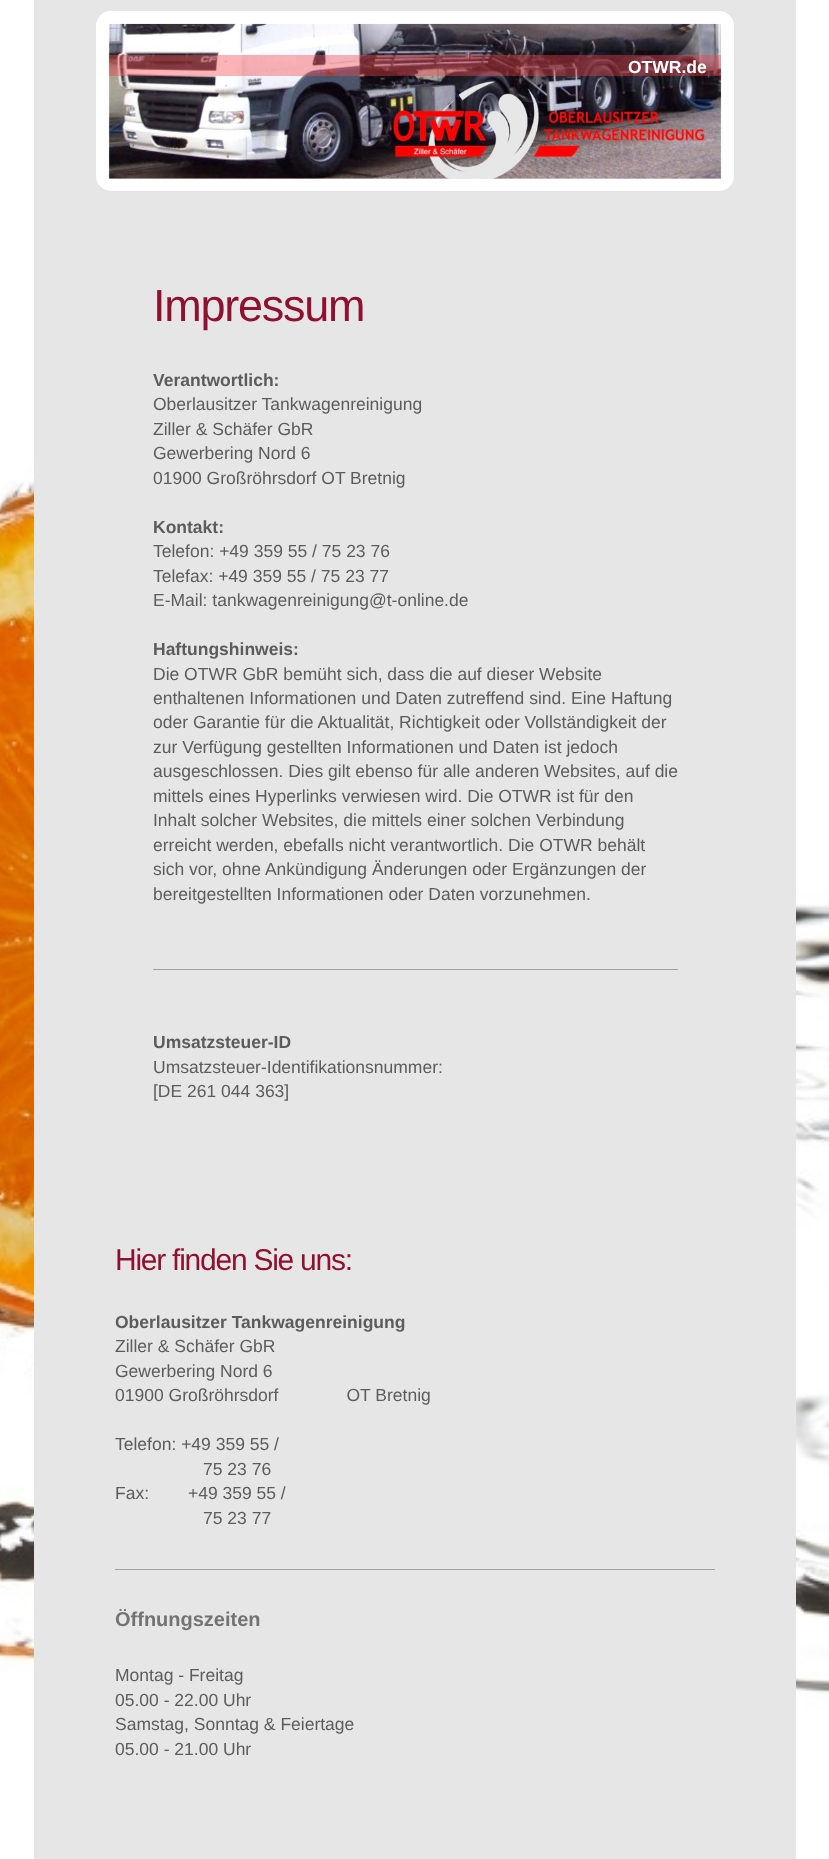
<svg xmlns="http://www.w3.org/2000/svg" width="829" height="1859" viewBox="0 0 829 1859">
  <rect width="100%" height="100%" fill="rgb(255,255,255)"/>
  <image x="0" y="0" width="829" height="1859" href="pic1.png"/>
  <rect x="34" y="0" width="762" height="1859" fill="rgb(230,230,230)"/>
  <rect x="102.5" y="17.5" width="625" height="167" rx="8.5" fill="none" stroke="rgb(255,255,255)" stroke-width="13"/>
  <rect x="109" y="178" width="612" height="1" fill="rgb(238,238,238)"/>
  <image x="108" y="23" width="614" height="156" href="pic2.png"/>
  <rect x="109" y="55" width="612" height="21" fill="rgba(247,68,72,0.4)"/>
  <text x="628" y="73" font-family="Liberation Sans" font-size="17.5" font-weight="bold" fill="rgb(255,255,255)">OTWR.de</text>
  <text x="153" y="321" font-family="Liberation Sans" font-size="45" letter-spacing="-1.25" fill="rgb(143,17,47)">Impressum</text>
  <text x="153" y="386" font-family="Liberation Sans" font-size="17.5" font-weight="bold" fill="rgb(92,92,92)">Verantwortlich:</text>
  <g font-family="Liberation Sans" font-size="17.5" fill="rgb(92,92,92)">
    <text>
      <tspan x="153" y="410">Oberlausitzer Tankwagenreinigung</tspan>
      <tspan x="153" y="435">Ziller &amp; Schäfer GbR</tspan>
      <tspan x="153" y="459">Gewerbering Nord 6</tspan>
      <tspan x="153" y="484">01900 Großröhrsdorf OT Bretnig</tspan>
    </text>
  </g>
  <text x="153" y="533" font-family="Liberation Sans" font-size="17.5" font-weight="bold" fill="rgb(92,92,92)">Kontakt:</text>
  <g font-family="Liberation Sans" font-size="17.5" fill="rgb(92,92,92)">
    <text>
      <tspan x="153" y="557">Telefon: +49 359 55 / 75 23 76</tspan>
      <tspan x="153" y="582">Telefax: +49 359 55 / 75 23 77</tspan>
      <tspan x="153" y="606">E-Mail: tankwagenreinigung@t-online.de</tspan>
    </text>
  </g>
  <text x="153" y="655" font-family="Liberation Sans" font-size="17.5" font-weight="bold" fill="rgb(92,92,92)">Haftungshinweis:</text>
  <g font-family="Liberation Sans" font-size="17.5" fill="rgb(92,92,92)">
    <text>
      <tspan x="153" y="680">Die OTWR GbR bemüht sich, dass die auf dieser Website</tspan>
      <tspan x="153" y="704">enthaltenen Informationen und Daten zutreffend sind. Eine Haftung</tspan>
      <tspan x="153" y="728">oder Garantie für die Aktualität, Richtigkeit oder Vollständigkeit der</tspan>
      <tspan x="153" y="753">zur Verfügung gestellten Informationen und Daten ist jedoch</tspan>
      <tspan x="153" y="777">ausgeschlossen. Dies gilt ebenso für alle anderen Websites, auf die</tspan>
      <tspan x="153" y="802">mittels eines Hyperlinks verwiesen wird. Die OTWR ist für den</tspan>
      <tspan x="153" y="826">Inhalt solcher Websites, die mittels einer solchen Verbindung</tspan>
      <tspan x="153" y="851">erreicht werden, ebefalls nicht verantwortlich. Die OTWR behält</tspan>
      <tspan x="153" y="875">sich vor, ohne Ankündigung Änderungen oder Ergänzungen der</tspan>
      <tspan x="153" y="900">bereitgestellten Informationen oder Daten vorzunehmen.</tspan>
    </text>
  </g>
  <rect x="153" y="969" width="525" height="1" fill="rgb(161,161,161)"/>
  <text x="153" y="1048" font-family="Liberation Sans" font-size="17.5" font-weight="bold" fill="rgb(92,92,92)">Umsatzsteuer-ID</text>
  <g font-family="Liberation Sans" font-size="17.5" fill="rgb(92,92,92)">
    <text>
      <tspan x="153" y="1073">Umsatzsteuer-Identifikationsnummer:</tspan>
      <tspan x="153" y="1097">[DE 261 044 363]</tspan>
    </text>
  </g>
  <text x="115" y="1270" font-family="Liberation Sans" font-size="30" letter-spacing="-1.25" fill="rgb(143,17,47)">Hier finden Sie uns:</text>
  <text x="115" y="1328" font-family="Liberation Sans" font-size="17.5" font-weight="bold" fill="rgb(92,92,92)">Oberlausitzer Tankwagenreinigung</text>
  <g font-family="Liberation Sans" font-size="17.5" fill="rgb(92,92,92)">
    <text xml:space="preserve"><tspan x="115" y="1352">Ziller &amp; Schäfer GbR</tspan><tspan x="115" y="1377">Gewerbering Nord 6</tspan><tspan x="115" y="1401">01900 Großröhrsdorf              OT Bretnig</tspan></text>
    <text x="115" y="1450">Telefon: +49 359 55 /</text>
    <text x="203" y="1475">75 23 76</text>
    <text x="115" y="1499" xml:space="preserve">Fax:        +49 359 55 /</text>
    <text x="203" y="1524">75 23 77</text>
  </g>
  <rect x="115" y="1569" width="600" height="1" fill="rgb(161,161,161)"/>
  <text x="115" y="1626" font-family="Liberation Sans" font-size="20" font-weight="bold" fill="rgb(115,115,115)">Öffnungszeiten</text>
  <g font-family="Liberation Sans" font-size="17.5" fill="rgb(92,92,92)">
    <text>
      <tspan x="115" y="1681">Montag - Freitag</tspan>
      <tspan x="115" y="1706">05.00 - 22.00 Uhr</tspan>
      <tspan x="115" y="1730">Samstag, Sonntag &amp; Feiertage</tspan>
      <tspan x="115" y="1755">05.00 - 21.00 Uhr</tspan>
    </text>
  </g>
</svg>
